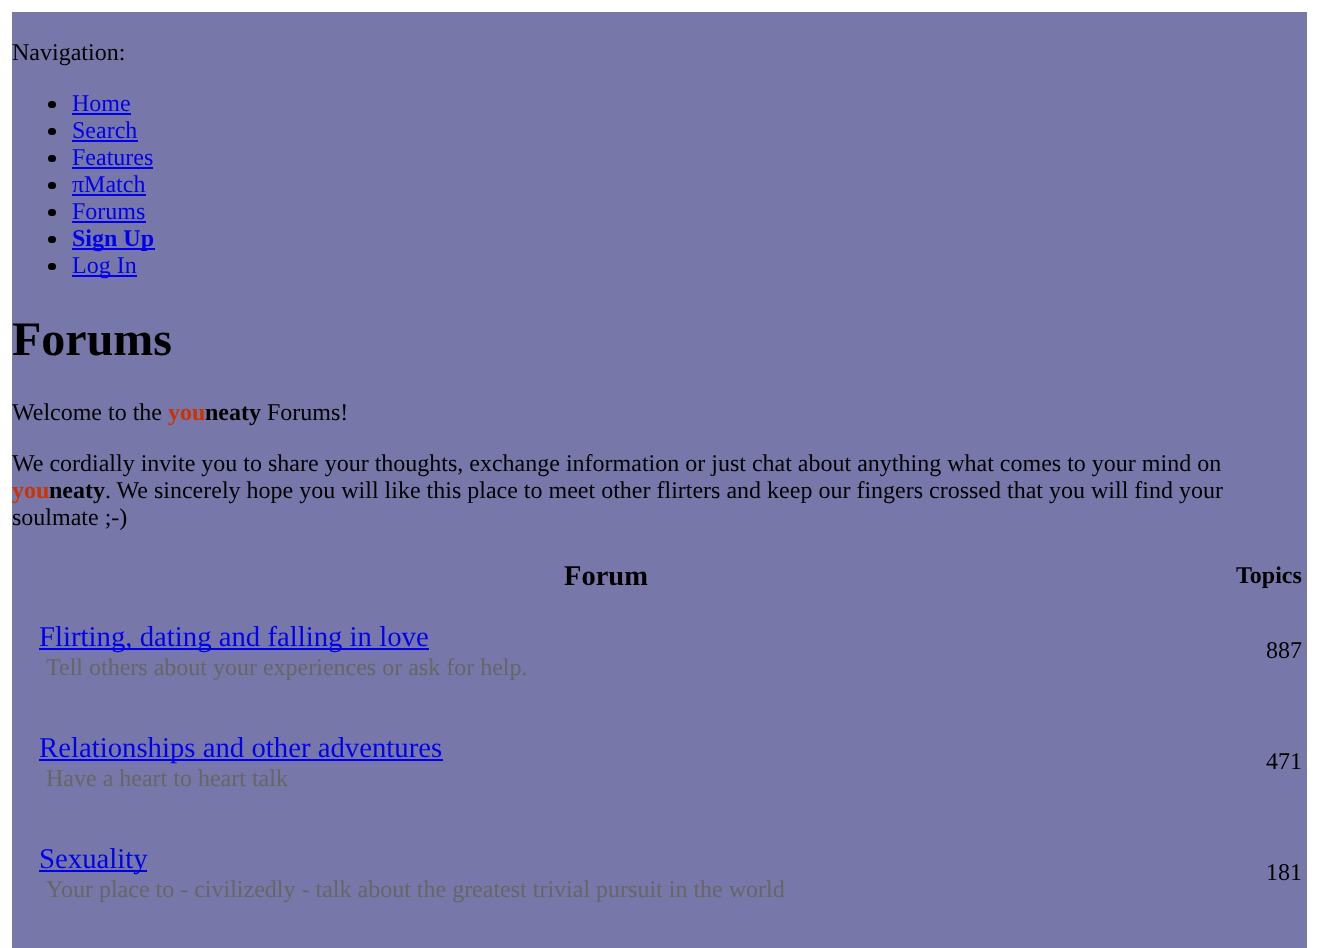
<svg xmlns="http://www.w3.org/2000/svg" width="1318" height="948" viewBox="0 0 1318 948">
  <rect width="100%" height="100%" fill="rgb(255,255,255)"/>
  <rect x="12" y="12" width="1295" height="936" fill="rgb(119,119,170)"/>
  <text x="12" y="60" font-family="Liberation Serif" font-size="24" fill="rgb(0,0,0)">Navigation:</text>
  <rect x="48" y="101" width="8" height="7" rx="3.5" fill="rgb(0,0,0)"/>
  <text x="72" y="111" font-family="Liberation Serif" font-size="24" fill="rgb(0,0,238)">Home</text>
  <rect x="72" y="113" width="59" height="2" fill="rgb(0,0,238)"/>
  <rect x="48" y="128" width="8" height="7" rx="3.5" fill="rgb(0,0,0)"/>
  <text x="72" y="138" font-family="Liberation Serif" font-size="24" fill="rgb(0,0,238)">Search</text>
  <rect x="72" y="140" width="66" height="2" fill="rgb(0,0,238)"/>
  <rect x="48" y="155" width="8" height="7" rx="3.5" fill="rgb(0,0,0)"/>
  <text x="72" y="165" font-family="Liberation Serif" font-size="24" fill="rgb(0,0,238)">Features</text>
  <rect x="72" y="167" width="81" height="2" fill="rgb(0,0,238)"/>
  <rect x="48" y="182" width="8" height="7" rx="3.5" fill="rgb(0,0,0)"/>
  <text x="72" y="192" font-family="Liberation Serif" font-size="24" fill="rgb(0,0,238)">πMatch</text>
  <rect x="72" y="194" width="74" height="2" fill="rgb(0,0,238)"/>
  <rect x="48" y="209" width="8" height="7" rx="3.5" fill="rgb(0,0,0)"/>
  <text x="72" y="219" font-family="Liberation Serif" font-size="24" fill="rgb(0,0,238)">Forums</text>
  <rect x="72" y="221" width="74" height="2" fill="rgb(0,0,238)"/>
  <rect x="48" y="236" width="8" height="7" rx="3.5" fill="rgb(0,0,0)"/>
  <rect x="72" y="248" width="83" height="2" fill="rgb(0,0,238)"/>
  <text x="72" y="246" font-family="Liberation Serif" font-size="24" font-weight="bold" fill="rgb(0,0,238)">Sign Up</text>
  <rect x="48" y="263" width="8" height="7" rx="3.5" fill="rgb(0,0,0)"/>
  <rect x="72" y="275" width="65" height="2" fill="rgb(0,0,238)"/>
  <text x="72" y="273" font-family="Liberation Serif" font-size="24" fill="rgb(0,0,238)">Log In</text>
  <text x="12" y="355" font-family="Liberation Serif" font-size="48" font-weight="bold" fill="rgb(0,0,0)">Forums</text>
  <text x="12" y="420" font-family="Liberation Serif" font-size="24" fill="rgb(0,0,0)">Welcome to the</text>
  <text x="168" y="420" font-family="Liberation Serif" font-size="24" font-weight="bold" fill="rgb(204,51,0)">you</text>
  <text x="205" y="420" font-family="Liberation Serif" font-size="24" font-weight="bold" fill="rgb(0,0,0)">neaty</text>
  <g font-family="Liberation Serif" font-size="24" fill="rgb(0,0,0)">
    <text x="267" y="420">Forums!</text>
    <text x="12" y="471">We cordially invite you to share your thoughts, exchange information or just chat about anything what comes to your mind on</text>
  </g>
  <text x="12" y="498" font-family="Liberation Serif" font-size="24" font-weight="bold" fill="rgb(204,51,0)">you</text>
  <text x="49" y="498" font-family="Liberation Serif" font-size="24" font-weight="bold" fill="rgb(0,0,0)">neaty</text>
  <g font-family="Liberation Serif" font-size="24" fill="rgb(0,0,0)">
    <text x="105" y="498">. We sincerely hope you will like this place to meet other flirters and keep our fingers crossed that you will find your</text>
    <text x="12" y="525">soulmate ;-)</text>
  </g>
  <text x="564" y="585" font-family="Liberation Serif" font-size="28.5" font-weight="bold" fill="rgb(0,0,0)">Forum</text>
  <text x="1236" y="583" font-family="Liberation Serif" font-size="24" font-weight="bold" fill="rgb(0,0,0)">Topics</text>
  <rect x="39" y="648" width="390" height="2" fill="rgb(0,0,238)"/>
  <text x="39" y="646" font-family="Liberation Serif" font-size="28.75" fill="rgb(0,0,238)">Flirting, dating and falling in love</text>
  <text x="46" y="675" font-family="Liberation Serif" font-size="24" fill="rgb(102,102,102)">Tell others about your experiences or ask for help.</text>
  <text x="1266" y="658" font-family="Liberation Serif" font-size="24" fill="rgb(0,0,0)">887</text>
  <rect x="39" y="759" width="404" height="2" fill="rgb(0,0,238)"/>
  <text x="39" y="757" font-family="Liberation Serif" font-size="28.75" fill="rgb(0,0,238)">Relationships and other adventures</text>
  <text x="46" y="786" font-family="Liberation Serif" font-size="24" fill="rgb(102,102,102)">Have a heart to heart talk</text>
  <text x="1266" y="769" font-family="Liberation Serif" font-size="24" fill="rgb(0,0,0)">471</text>
  <rect x="39" y="870" width="108" height="2" fill="rgb(0,0,238)"/>
  <text x="39" y="868" font-family="Liberation Serif" font-size="28.75" fill="rgb(0,0,238)">Sexuality</text>
  <text x="46" y="897" font-family="Liberation Serif" font-size="24" fill="rgb(102,102,102)">Your place to - civilizedly - talk about the greatest trivial pursuit in the world</text>
  <text x="1266" y="880" font-family="Liberation Serif" font-size="24" fill="rgb(0,0,0)">181</text>
</svg>
